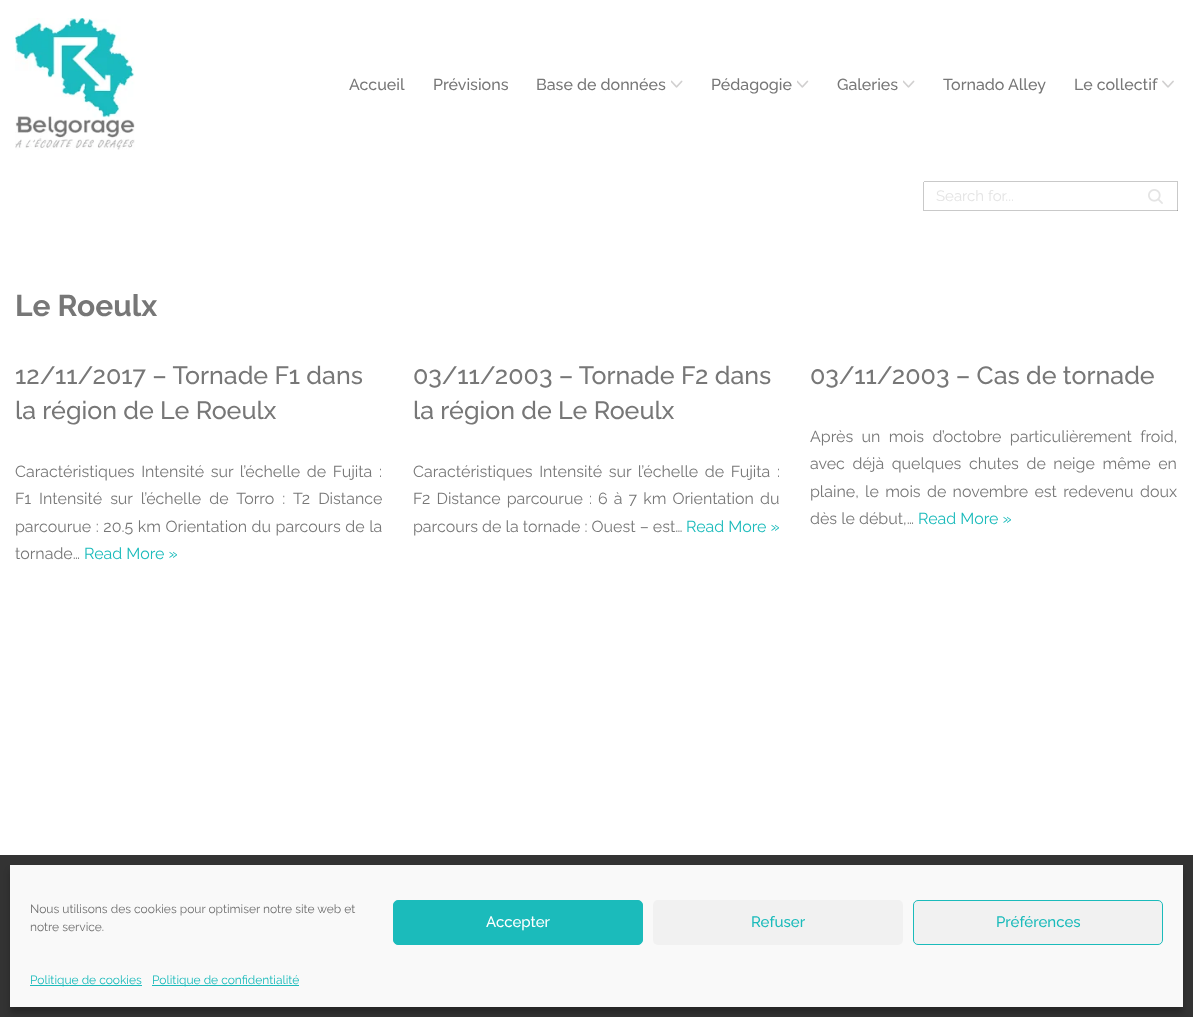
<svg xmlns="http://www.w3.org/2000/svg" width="1193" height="1017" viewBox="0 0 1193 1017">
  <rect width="100%" height="100%" fill="rgb(255,255,255)"/>
  <rect x="924" y="210" width="254" height="1" fill="rgb(201,201,201)"/>
  <image x="15" y="18" width="120" height="132" href="pic1.png"/>
  <g font-family="Raleway" font-size="16" font-weight="500" fill="rgb(119,119,119)">
    <text x="349" y="90">Accueil</text>
    <text x="433" y="90">Prévisions</text>
    <text x="536" y="90">Base de données</text>
  </g>
  <image x="671" y="80" width="12" height="8" href="pic2.png"/>
  <text x="711" y="90" font-family="Raleway" font-size="16" font-weight="500" fill="rgb(119,119,119)">Pédagogie</text>
  <image x="797" y="80" width="12" height="8" href="pic3.png"/>
  <text x="837" y="90" font-family="Raleway" font-size="16" font-weight="500" fill="rgb(119,119,119)">Galeries</text>
  <image x="903" y="80" width="12" height="8" href="pic4.png"/>
  <g font-family="Raleway" font-size="16" font-weight="500" fill="rgb(119,119,119)">
    <text x="943" y="90">Tornado Alley</text>
    <text x="1074" y="90">Le collectif</text>
  </g>
  <image x="1162" y="80" width="12" height="8" href="pic5.png"/>
  <rect x="924" y="181" width="254" height="1" fill="rgb(201,201,201)"/>
  <rect x="923" y="182" width="1" height="29" fill="rgb(201,201,201)"/>
  <text x="936" y="201" font-family="Raleway" font-size="15" fill="rgb(228,228,228)">Search for...</text>
  <rect x="1177" y="182" width="1" height="29" fill="rgb(201,201,201)"/>
  <rect x="1177" y="210" width="1" height="1" fill="rgb(159,159,159)"/>
  <image x="1148" y="189" width="15" height="15" href="pic6.png"/>
  <text x="15" y="316" font-family="Raleway" font-size="30" font-weight="bold" fill="rgb(119,119,119)">Le Roeulx</text>
  <g font-family="Raleway" font-size="25" font-weight="500" fill="rgb(119,119,119)">
    <text>
      <tspan x="15" y="384">12/11/2017 – Tornade F1 dans</tspan>
      <tspan x="15" y="419">la région de Le Roeulx</tspan>
    </text>
  </g>
  <g font-family="Raleway" font-size="16" fill="rgb(119,119,119)">
    <text>
      <tspan x="15" y="477" word-spacing="2.5">Caractéristiques Intensité sur l’échelle de Fujita :</tspan>
      <tspan x="15" y="504" word-spacing="4">F1 Intensité sur l’échelle de Torro : T2 Distance</tspan>
      <tspan x="15" y="532" word-spacing="0.5">parcourue : 20.5 km Orientation du parcours de la</tspan>
      <tspan x="15" y="559">tornade…</tspan>
    </text>
  </g>
  <text x="84" y="559" font-family="Raleway" font-size="16" fill="rgb(27,187,187)">Read More »</text>
  <g font-family="Raleway" font-size="25" font-weight="500" fill="rgb(119,119,119)">
    <text>
      <tspan x="413" y="384">03/11/2003 – Tornade F2 dans</tspan>
      <tspan x="413" y="419">la région de Le Roeulx</tspan>
    </text>
  </g>
  <g font-family="Raleway" font-size="16" fill="rgb(119,119,119)">
    <text>
      <tspan x="413" y="477" word-spacing="2.5">Caractéristiques Intensité sur l’échelle de Fujita :</tspan>
      <tspan x="413" y="504" word-spacing="2">F2 Distance parcourue : 6 à 7 km Orientation du</tspan>
      <tspan x="413" y="532">parcours de la tornade : Ouest – est…</tspan>
    </text>
  </g>
  <text x="686" y="532" font-family="Raleway" font-size="16" fill="rgb(27,187,187)">Read More »</text>
  <text x="810" y="384" font-family="Raleway" font-size="25" font-weight="500" fill="rgb(119,119,119)">03/11/2003 – Cas de tornade</text>
  <g font-family="Raleway" font-size="16" fill="rgb(119,119,119)">
    <text>
      <tspan x="810" y="442" word-spacing="4.25">Après un mois d’octobre particulièrement froid,</tspan>
      <tspan x="810" y="469" word-spacing="3.5">avec déjà quelques chutes de neige même en</tspan>
      <tspan x="810" y="497" word-spacing="2.25">plaine, le mois de novembre est redevenu doux</tspan>
      <tspan x="810" y="524">dès le début,…</tspan>
    </text>
  </g>
  <text x="918" y="524" font-family="Raleway" font-size="16" fill="rgb(27,187,187)">Read More »</text>
  <rect x="0" y="855" width="1193" height="162" fill="rgb(51,51,51)"/>
  <rect x="10" y="871" width="1173" height="142" fill="rgba(0,0,0,0.23)" filter="blur(3px)"/>
  <rect x="10" y="865" width="1173" height="142" fill="rgb(249,249,249)"/>
  <g font-family="Raleway" font-size="12" fill="rgb(112,112,112)">
    <text>
      <tspan x="30" y="913">Nous utilisons des cookies pour optimiser notre site web et</tspan>
      <tspan x="30" y="931">notre service.</tspan>
    </text>
  </g>
  <rect x="393.5" y="900.5" width="249" height="44" rx="4.5" fill="rgb(27,187,187)" stroke="rgb(27,187,187)"/>
  <text x="486" y="927" font-family="Raleway" font-size="15" font-weight="500" fill="rgb(255,255,255)">Accepter</text>
  <rect x="653" y="900" width="250" height="45" rx="5" fill="rgb(241,241,241)"/>
  <text x="751" y="927" font-family="Raleway" font-size="15" font-weight="500" fill="rgb(27,187,187)">Refuser</text>
  <rect x="913.5" y="900.5" width="249" height="44" rx="4.5" fill="rgb(241,241,241)" stroke="rgb(27,187,187)"/>
  <text x="996" y="927" font-family="Raleway" font-size="15" font-weight="500" fill="rgb(27,187,187)">Préférences</text>
  <rect x="30" y="985" width="112" height="1" fill="rgb(27,187,187)"/>
  <text x="30" y="984" font-family="Raleway" font-size="12" fill="rgb(27,187,187)">Politique de cookies</text>
  <rect x="152" y="985" width="147" height="1" fill="rgb(27,187,187)"/>
  <text x="152" y="984" font-family="Raleway" font-size="12" fill="rgb(27,187,187)">Politique de confidentialité</text>
</svg>
